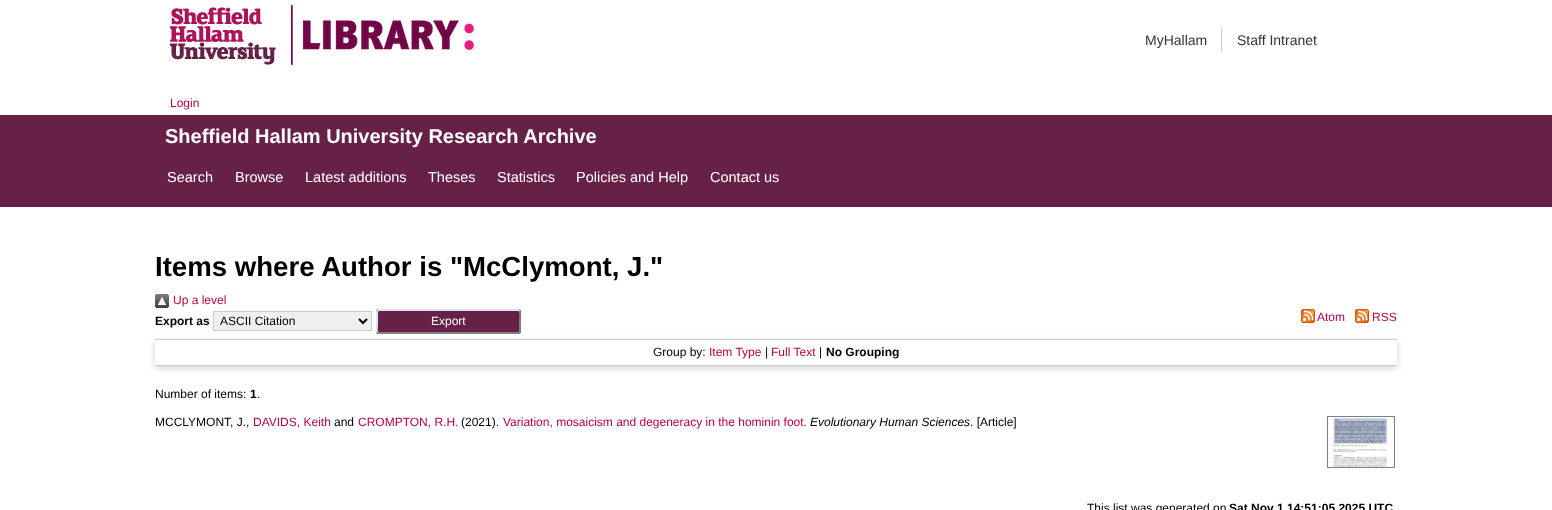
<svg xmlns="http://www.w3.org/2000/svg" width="1552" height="510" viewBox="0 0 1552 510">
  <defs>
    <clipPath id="clip1"><path d="M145 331H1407V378H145ZM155 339H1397V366H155Z" clip-rule="evenodd"/></clipPath>
  </defs>
  <rect width="100%" height="100%" fill="rgb(255,255,255)"/>
  <image x="170" y="7" width="106" height="58" href="pic1.png"/>
  <image x="291" y="5" width="183" height="60" href="pic2.png"/>
  <text x="1145" y="45" font-family="Liberation Sans" font-size="14" fill="rgb(51,51,51)">MyHallam</text>
  <rect x="1221" y="27" width="1" height="25" fill="rgb(204,204,204)"/>
  <text x="1237" y="45" font-family="Liberation Sans" font-size="14" fill="rgb(51,51,51)">Staff Intranet</text>
  <text x="170" y="107" font-family="Liberation Sans" font-size="12" fill="rgb(186,0,70)">Login</text>
  <rect x="0" y="115" width="1552" height="92" fill="rgb(103,33,70)"/>
  <text x="165" y="143" font-family="Liberation Sans" font-size="20" font-weight="bold" fill="rgb(255,255,255)">Sheffield Hallam University Research Archive</text>
  <g font-family="Liberation Sans" font-size="14.5" fill="rgb(255,255,255)">
    <text x="167" y="182">Search</text>
    <text x="235" y="182">Browse</text>
    <text x="305" y="182">Latest additions</text>
    <text x="428" y="182">Theses</text>
    <text x="497" y="182">Statistics</text>
    <text x="576" y="182">Policies and Help</text>
    <text x="710" y="182">Contact us</text>
  </g>
  <text x="155" y="276" font-family="Liberation Sans" font-size="27.6" font-weight="bold" fill="rgb(0,0,0)">Items where Author is "McClymont, J."</text>
  <image x="155" y="294" width="14" height="14" href="pic3.png"/>
  <text x="173" y="304" font-family="Liberation Sans" font-size="12" fill="rgb(186,0,70)">Up a level</text>
  <text x="155" y="325" font-family="Liberation Sans" font-size="12" font-weight="bold" fill="rgb(0,0,0)">Export as</text>
  <rect x="213.5" y="311.5" width="158" height="19" fill="rgb(239,239,239)" stroke="rgb(204,204,204)"/>
  <path d="M359 319L363 323L367 319" fill="none" stroke="rgb(0,0,0)" stroke-width="2"/>
  <text x="220" y="325" font-family="Liberation Sans" font-size="12" fill="rgb(0,0,0)">ASCII Citation</text>
  <g clip-path="url(#clip1)">
    <rect x="155" y="341" width="1242" height="27" fill="rgba(100,100,100,0.3)" filter="blur(3px)"/>
  </g>
  <rect x="376" y="309" width="145" height="25" rx="3" fill="rgb(103,33,70)"/>
  <path d="M519.5 310.5C521 312.5 520 316.5 520 318.5V328C520 329.5 520.5 333 518 333H378.5L377.5 332.5" fill="none" stroke="rgb(128,128,128)" stroke-width="2"/>
  <path d="M377.5 332.5C376 330.5 377 326.5 377 324.5V315C377 313.5 376.5 310 379 310H518.5L519.5 310.5" fill="none" stroke="rgb(224,224,255)" stroke-width="2"/>
  <text x="431" y="325" font-family="Liberation Sans" font-size="12" fill="rgb(255,255,255)">Export</text>
  <image x="1301" y="309" width="14" height="14" href="pic4.png"/>
  <text x="1317" y="321" font-family="Liberation Sans" font-size="12" fill="rgb(186,0,70)">Atom</text>
  <image x="1355" y="309" width="14" height="14" href="pic4.png"/>
  <text x="1372" y="321" font-family="Liberation Sans" font-size="12" fill="rgb(186,0,70)">RSS</text>
  <rect x="155" y="339" width="1242" height="1" fill="rgb(204,204,204)"/>
  <rect x="155" y="365" width="1242" height="1" fill="rgb(204,204,204)"/>
  <text x="653" y="356" font-family="Liberation Sans" font-size="12" fill="rgb(0,0,0)">Group by:</text>
  <text x="709" y="356" font-family="Liberation Sans" font-size="12" fill="rgb(186,0,70)">Item Type</text>
  <text x="765" y="356" font-family="Liberation Sans" font-size="12" fill="rgb(0,0,0)">|</text>
  <text x="771" y="356" font-family="Liberation Sans" font-size="12" fill="rgb(186,0,70)">Full Text</text>
  <text x="819" y="356" font-family="Liberation Sans" font-size="12" fill="rgb(0,0,0)">|</text>
  <text x="826" y="356" font-family="Liberation Sans" font-size="12" font-weight="bold" fill="rgb(0,0,0)">No Grouping</text>
  <text x="155" y="398" font-family="Liberation Sans" font-size="12" fill="rgb(0,0,0)">Number of items:</text>
  <text x="250" y="398" font-family="Liberation Sans" font-size="12" font-weight="bold" fill="rgb(0,0,0)">1</text>
  <g font-family="Liberation Sans" font-size="12" fill="rgb(0,0,0)">
    <text x="257" y="398">.</text>
    <text x="155" y="426">MCCLYMONT, J.,</text>
  </g>
  <text x="253" y="426" font-family="Liberation Sans" font-size="12" fill="rgb(186,0,70)">DAVIDS, Keith</text>
  <text x="334" y="426" font-family="Liberation Sans" font-size="12" fill="rgb(0,0,0)">and</text>
  <text x="358" y="426" font-family="Liberation Sans" font-size="12" fill="rgb(186,0,70)">CROMPTON, R.H.</text>
  <text x="461" y="426" font-family="Liberation Sans" font-size="12" fill="rgb(0,0,0)">(2021).</text>
  <text x="503" y="426" font-family="Liberation Sans" font-size="12" fill="rgb(186,0,70)">Variation, mosaicism and degeneracy in the hominin foot.</text>
  <text x="810" y="426" font-family="Liberation Sans" font-size="12" font-style="italic" fill="rgb(0,0,0)">Evolutionary Human Sciences</text>
  <text x="970" y="426" font-family="Liberation Sans" font-size="12" fill="rgb(0,0,0)">. [Article]</text>
  <image x="1327" y="416" width="68" height="52" href="pic5.png"/>
  <text x="1087" y="512" font-family="Liberation Sans" font-size="12" fill="rgb(0,0,0)">This list was generated on</text>
  <text x="1229" y="512" font-family="Liberation Sans" font-size="12" font-weight="bold" fill="rgb(0,0,0)">Sat Nov 1 14:51:05 2025 UTC</text>
</svg>
